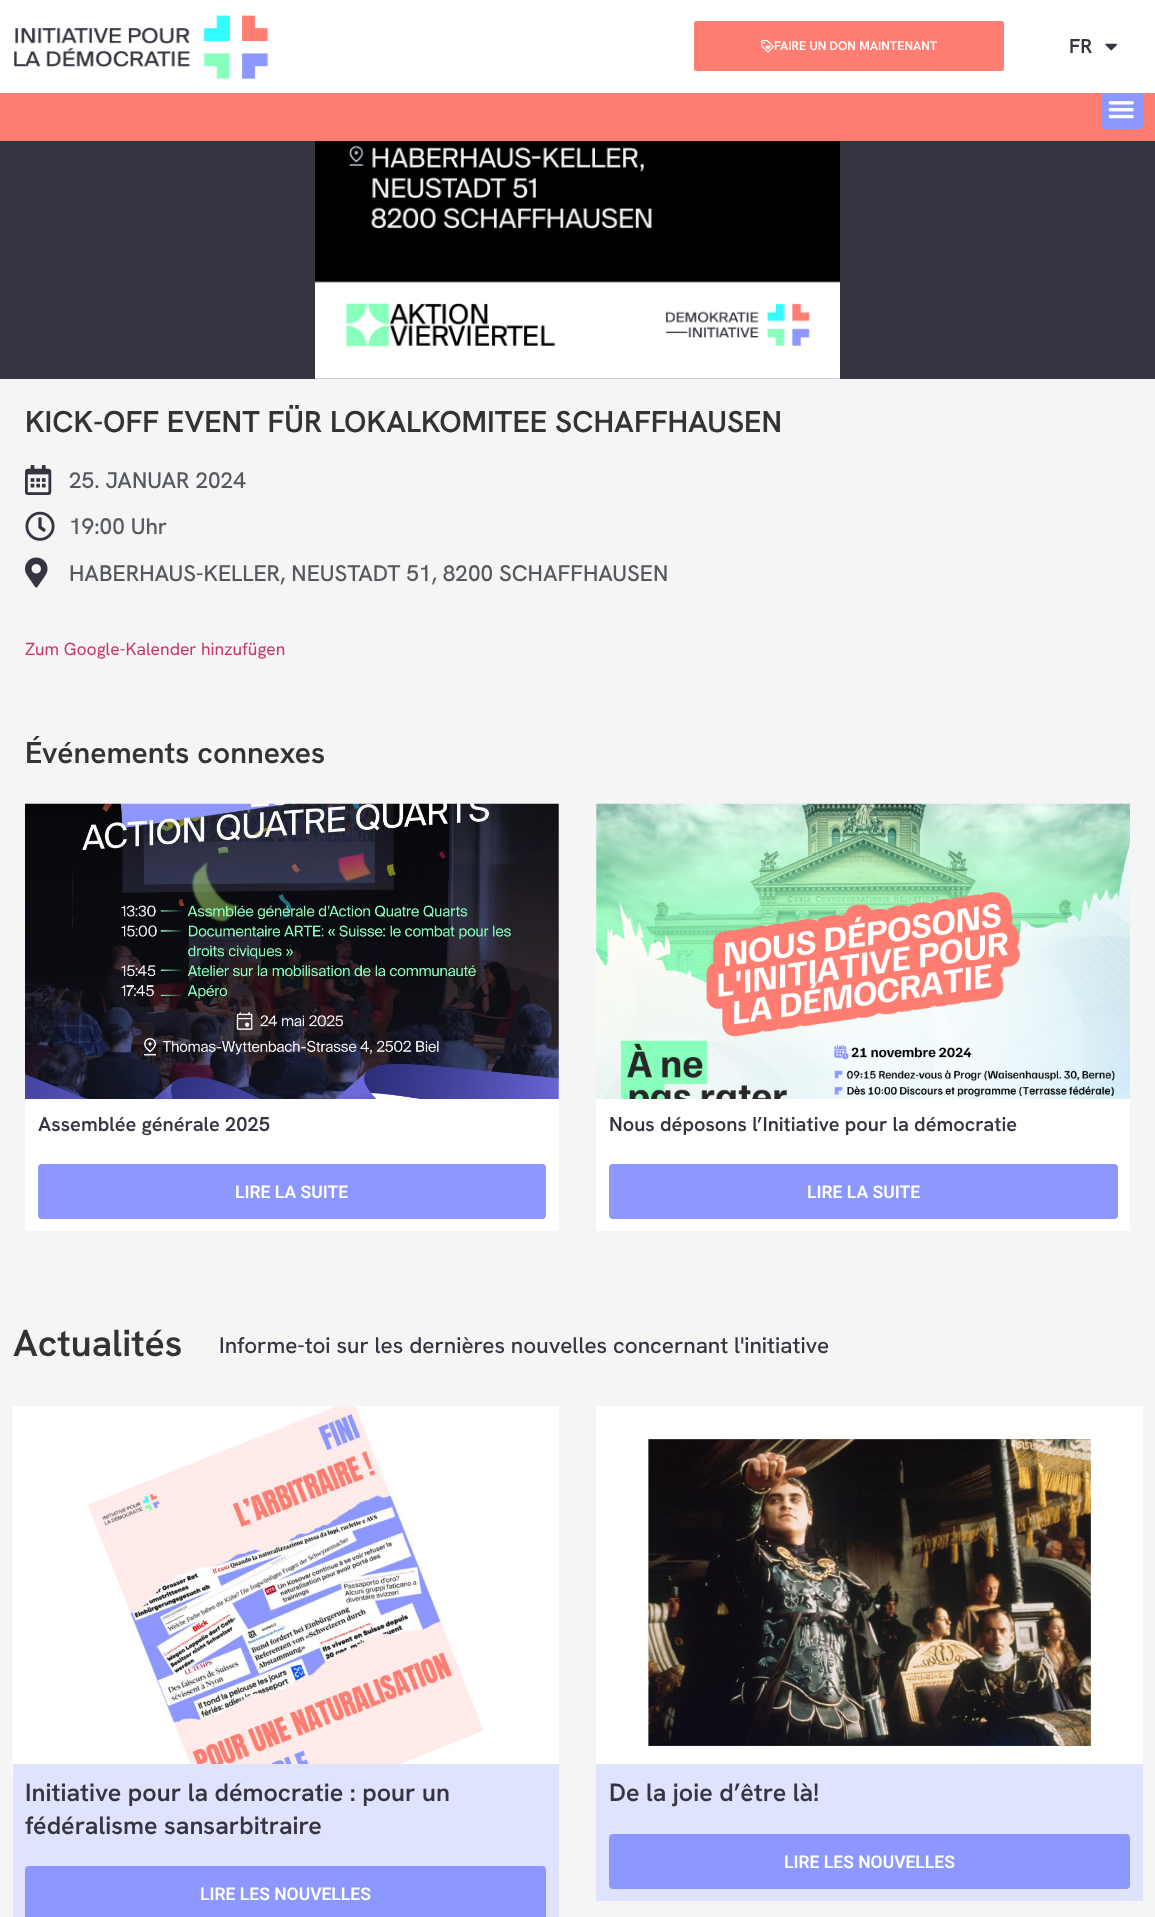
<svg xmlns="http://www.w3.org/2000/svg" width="1155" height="1917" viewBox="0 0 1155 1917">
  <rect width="100%" height="100%" fill="rgb(54,52,64)"/>
  <rect x="0" y="93" width="1155" height="48" fill="rgb(255,126,113)"/>
  <rect x="1101" y="88" width="42" height="41" rx="4" fill="rgb(140,152,255)"/>
  <rect x="0" y="0" width="1155" height="93" fill="rgb(255,255,255)"/>
  <image x="14" y="15" width="255" height="65" href="pic1.png"/>
  <rect x="694" y="21" width="310" height="50" rx="2.5" fill="rgb(255,126,113)"/>
  <image x="761" y="40" width="13" height="13" href="pic2.png"/>
  <text x="774" y="50" font-family="Hanken Grotesk" font-size="12.5" font-weight="600" fill="rgb(255,255,255)">FAIRE UN DON MAINTENANT</text>
  <text x="1069" y="53" font-family="Hanken Grotesk" font-size="20" font-weight="600" fill="rgb(54,52,64)">FR</text>
  <image x="1105" y="43" width="12" height="8" href="pic3.png"/>
  <image x="1108" y="101" width="26" height="18" href="pic4.png"/>
  <image x="315" y="141" width="525" height="238" href="pic5.png"/>
  <rect x="0" y="379" width="1155" height="1538" fill="rgb(245,245,245)"/>
  <text x="25" y="432" font-family="Hanken Grotesk" font-size="30" font-weight="600" fill="rgb(51,51,51)">KICK-OFF EVENT FÜR LOKALKOMITEE SCHAFFHAUSEN</text>
  <image x="25" y="465" width="27" height="30" href="pic6.png"/>
  <text x="69" y="488" font-family="Hanken Grotesk" font-size="22.5" font-weight="500" fill="rgb(84,89,95)">25. JANUAR 2024</text>
  <image x="25" y="511" width="30" height="30" href="pic7.png"/>
  <text x="69" y="534" font-family="Hanken Grotesk" font-size="22.5" font-weight="500" fill="rgb(84,89,95)">19:00 Uhr</text>
  <image x="25" y="557" width="23" height="31" href="pic8.png"/>
  <text x="69" y="581" font-family="Hanken Grotesk" font-size="22.5" font-weight="500" fill="rgb(84,89,95)">HABERHAUS-KELLER, NEUSTADT 51, 8200 SCHAFFHAUSEN</text>
  <text x="25" y="655" font-family="Hanken Grotesk" font-size="17.5" fill="rgb(204,51,102)">Zum Google-Kalender hinzufügen</text>
  <text x="25" y="763" font-family="Hanken Grotesk" font-size="30" font-weight="600" fill="rgb(51,51,51)">Événements connexes</text>
  <image x="25" y="803" width="534" height="296" href="pic9.png"/>
  <rect x="25" y="1099" width="534" height="132" fill="rgb(255,255,255)"/>
  <text x="38" y="1131" font-family="Hanken Grotesk" font-size="20" font-weight="600" fill="rgb(54,52,64)">Assemblée générale 2025</text>
  <rect x="38" y="1164" width="508" height="55" rx="4" fill="rgb(140,152,255)"/>
  <text x="235" y="1198" font-family="Roboto" font-size="17.5" font-weight="600" fill="rgb(255,255,255)">LIRE LA SUITE</text>
  <image x="596" y="803" width="534" height="296" href="pic10.png"/>
  <rect x="596" y="1099" width="534" height="132" fill="rgb(255,255,255)"/>
  <text x="609" y="1131" font-family="Hanken Grotesk" font-size="20" font-weight="600" fill="rgb(54,52,64)">Nous déposons l’Initiative pour la démocratie</text>
  <rect x="609" y="1164" width="509" height="55" rx="4" fill="rgb(140,152,255)"/>
  <text x="807" y="1198" font-family="Roboto" font-size="17.5" font-weight="600" fill="rgb(255,255,255)">LIRE LA SUITE</text>
  <text x="13" y="1356" font-family="Hanken Grotesk" font-size="37.5" font-weight="600" fill="rgb(51,51,51)">Actualités</text>
  <text x="219" y="1353" font-family="Hanken Grotesk" font-size="22.5" font-weight="500" fill="rgb(54,52,64)">Informe-toi sur les dernières nouvelles concernant l'initiative</text>
  <rect x="13" y="1406" width="546" height="358" fill="rgb(255,255,255)"/>
  <image x="12" y="1406" width="472" height="373" href="pic11.png"/>
  <rect x="13" y="1764" width="546" height="153" fill="rgb(224,227,254)"/>
  <g font-family="Hanken Grotesk" font-size="25" font-weight="600" fill="rgb(54,52,64)">
    <text>
      <tspan x="25" y="1801">Initiative pour la démocratie : pour un</tspan>
      <tspan x="25" y="1834">fédéralisme sansarbitraire</tspan>
    </text>
  </g>
  <rect x="25" y="1866" width="521" height="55" rx="4" fill="rgb(140,152,255)"/>
  <text x="200" y="1900" font-family="Roboto" font-size="17.5" font-weight="600" fill="rgb(255,255,255)">LIRE LES NOUVELLES</text>
  <rect x="596" y="1406" width="547" height="358" fill="rgb(255,255,255)"/>
  <image x="648" y="1439" width="443" height="307" href="pic12.png"/>
  <rect x="596" y="1764" width="547" height="137" fill="rgb(224,227,254)"/>
  <text x="609" y="1801" font-family="Hanken Grotesk" font-size="25" font-weight="600" fill="rgb(54,52,64)">De la joie d’être là!</text>
  <rect x="609" y="1834" width="521" height="55" rx="4" fill="rgb(140,152,255)"/>
  <text x="784" y="1868" font-family="Roboto" font-size="17.5" font-weight="600" fill="rgb(255,255,255)">LIRE LES NOUVELLES</text>
</svg>
